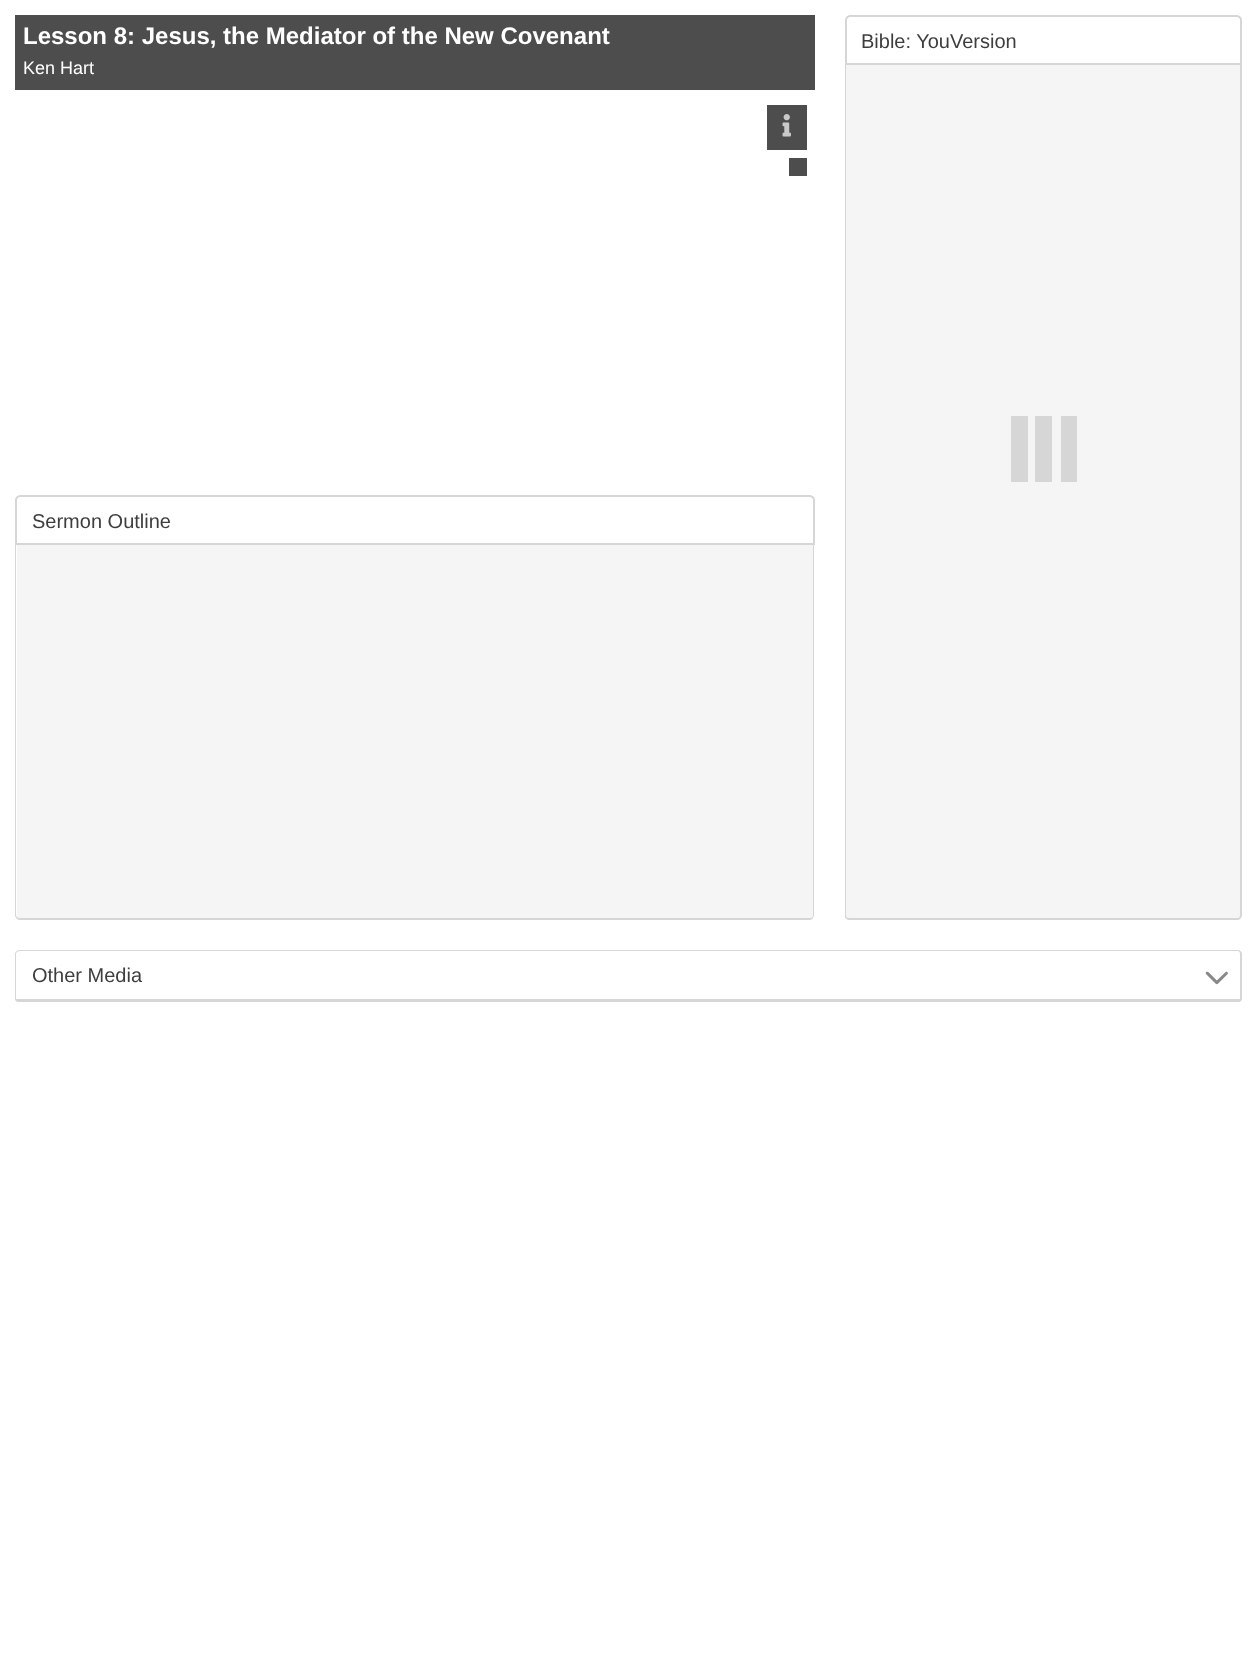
<svg xmlns="http://www.w3.org/2000/svg" width="1257" height="1661" viewBox="0 0 1257 1661">
  <defs>
    <clipPath id="clip1"><rect x="845" y="15" width="397" height="905"/></clipPath>
  </defs>
  <rect width="100%" height="100%" fill="rgb(255,255,255)"/>
  <rect x="15" y="15" width="800" height="75" fill="rgb(77,77,77)"/>
  <text x="23" y="44" font-family="Liberation Sans" font-size="24" font-weight="bold" fill="rgb(255,255,255)">Lesson 8: Jesus, the Mediator of the New Covenant</text>
  <text x="23" y="74" font-family="Liberation Sans" font-size="18" fill="rgb(255,255,255)">Ken Hart</text>
  <rect x="767" y="105" width="40" height="45" fill="rgb(77,77,77)"/>
  <image x="782" y="114" width="9" height="23" href="pic1.png"/>
  <rect x="789" y="158" width="18" height="18" fill="rgb(77,77,77)"/>
  <path d="M850 16H1237C1239 16 1241 18 1241 20V64H846V20C846 18 848 16 850 16Z" fill="none" stroke="rgb(214,214,214)" stroke-width="2"/>
  <text x="861" y="48" font-family="Liberation Sans" font-size="20" fill="rgb(62,62,62)">Bible: YouVersion</text>
  <path d="M846 65H1241V915C1241 916.5 1239.5 918 1238 918H849C847.5 918 846 916.5 846 915Z" fill="rgb(245,245,245)"/>
  <g clip-path="url(#clip1)">
    <path d="M844 64H1242V915C1242 917 1240 920 1238 920H849C847 920 844 917 844 915ZM846 64H1240V915C1240 917 1239 918 1238 918H849C847 918 846 917 846 915Z" fill="rgb(214,214,214)" fill-rule="evenodd"/>
  </g>
  <rect x="1035" y="416" width="17" height="66" fill="rgb(214,214,214)"/>
  <rect x="1011" y="416" width="17" height="66" fill="rgb(214,214,214)"/>
  <rect x="1061" y="416" width="16" height="66" fill="rgb(214,214,214)"/>
  <path d="M20 496H810C812 496 814 498 814 500V544H16V500C16 498 18 496 20 496Z" fill="none" stroke="rgb(214,214,214)" stroke-width="2"/>
  <text x="32" y="528" font-family="Liberation Sans" font-size="20" fill="rgb(62,62,62)">Sermon Outline</text>
  <path d="M17 545H813V915C813 916.5 811.5 918 810 918H20C18.5 918 17 916.5 17 915Z" fill="rgb(245,245,245)"/>
  <path d="M15 544H814V915C814 917 812 920 810 920H20C17 920 15 917 15 915ZM16 544H813V915C813 917 812 918 810 918H20C18 918 16 917 16 915Z" fill="rgb(214,214,214)" fill-rule="evenodd"/>
  <path d="M20 950H1238C1240 950 1242 952 1242 954V999H15V954C15 952 17 950 20 950ZM20 951H1238C1239 951 1240 952 1240 954V999H16V954C16 952 18 951 20 951Z" fill="rgb(214,214,214)" fill-rule="evenodd"/>
  <text x="32" y="982" font-family="Liberation Sans" font-size="20" fill="rgb(62,62,62)">Other Media</text>
  <image x="1205" y="971" width="23" height="14" href="pic2.png"/>
  <path d="M15 999H1242C1242 1000.5 1240.5 1002 1239 1002H18C16.5 1002 15 1000.5 15 999Z" fill="rgb(214,214,214)"/>
</svg>
